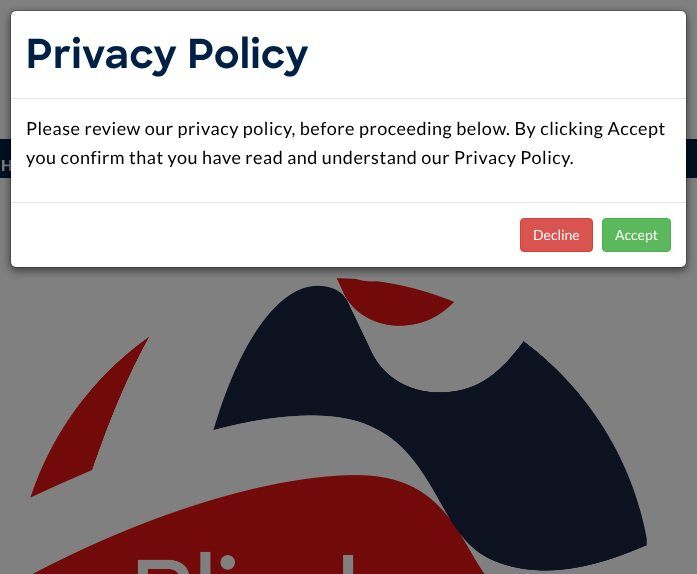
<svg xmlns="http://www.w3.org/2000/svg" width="697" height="574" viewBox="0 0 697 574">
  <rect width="100%" height="100%" fill="rgb(128,128,128)"/>
  <rect x="0" y="139" width="697" height="39" fill="rgb(0,16,35)"/>
  <text x="1" y="171" font-family="Liberation Sans" font-size="16" font-weight="bold" letter-spacing="0.5" fill="rgb(128,128,128)">H</text>
  <image x="30" y="278" width="617" height="296" href="pic1.png"/>
  <rect x="10" y="13" width="677" height="258" rx="6" fill="rgba(0,0,0,0.5)" filter="blur(4.5px)"/>
  <rect x="11" y="11" width="675" height="256" rx="5" fill="rgb(255,255,255)"/>
  <rect x="10.5" y="10.5" width="676" height="257" rx="5.5" fill="none" stroke="rgba(0,0,0,0.2)"/>
  <rect x="11" y="98" width="675" height="1" fill="rgb(229,229,229)"/>
  <text x="26" y="68" font-family="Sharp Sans" font-size="40" font-weight="bold" letter-spacing="0.5" fill="rgb(0,32,70)">Privacy Policy</text>
  <g font-family="Lato" font-size="18" letter-spacing="0.5" fill="rgb(0,0,0)">
    <text>
      <tspan x="26" y="135">Please review our privacy policy, before proceeding below. By clicking Accept</tspan>
      <tspan x="26" y="164">you confirm that you have read and understand our Privacy Policy.</tspan>
    </text>
  </g>
  <rect x="11" y="202" width="675" height="1" fill="rgb(229,229,229)"/>
  <rect x="520.5" y="218.5" width="72" height="33" rx="3.5" fill="rgb(217,83,79)" stroke="rgb(212,63,58)"/>
  <text x="533" y="240" font-family="Lato" font-size="14" fill="rgb(255,255,255)">Decline</text>
  <rect x="602.5" y="218.5" width="68" height="33" rx="3.5" fill="rgb(92,184,92)" stroke="rgb(76,174,76)"/>
  <text x="615" y="240" font-family="Lato" font-size="14" fill="rgb(255,255,255)">Accept</text>
</svg>
